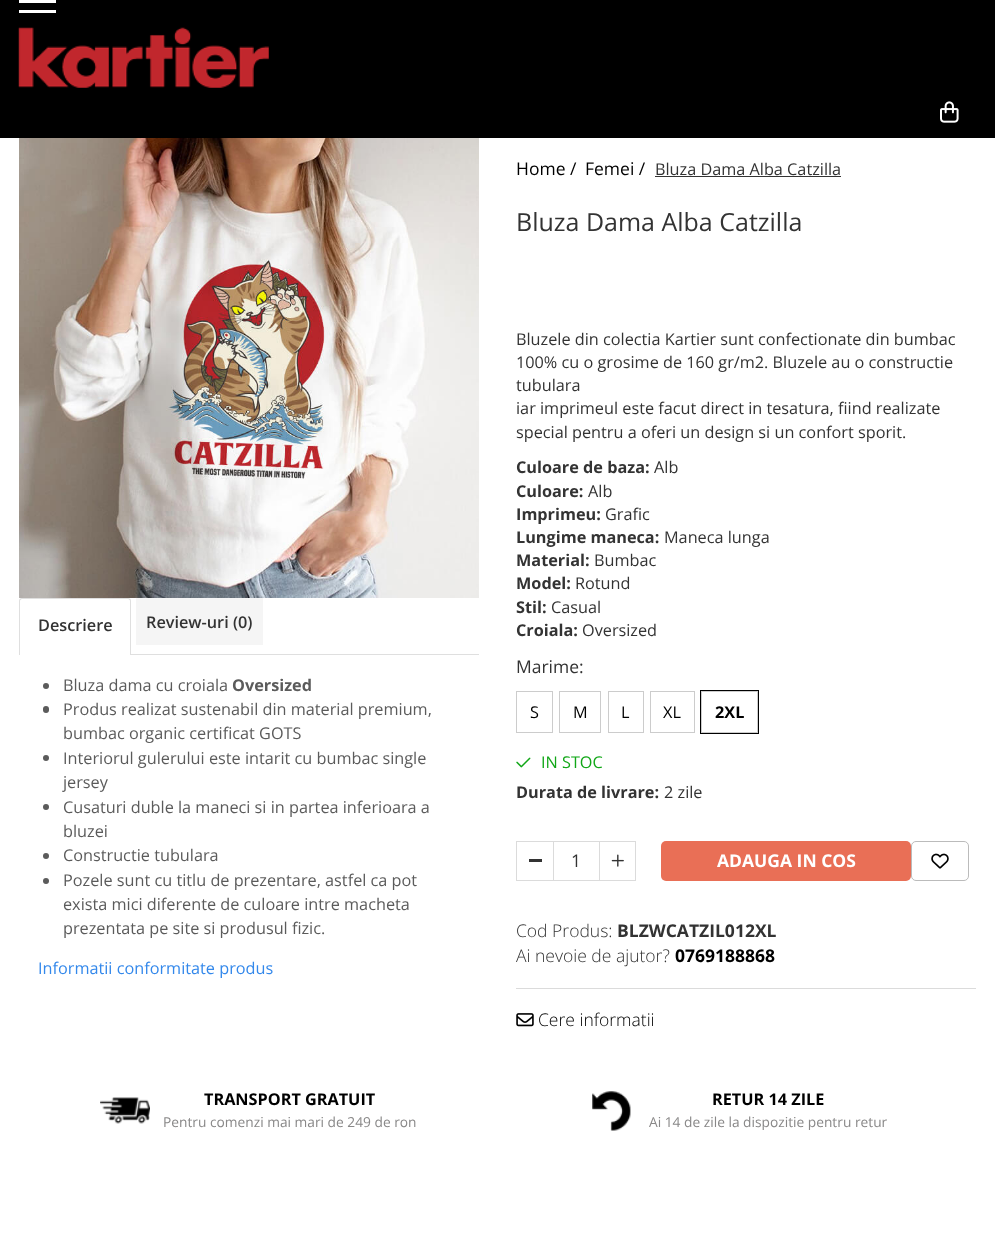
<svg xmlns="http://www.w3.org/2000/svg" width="995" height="1250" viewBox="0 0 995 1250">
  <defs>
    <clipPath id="clip1"><rect x="649" y="1090" width="239" height="40"/></clipPath>
  </defs>
  <rect width="100%" height="100%" fill="rgb(255,255,255)"/>
  <rect x="0" y="0" width="995" height="138" fill="rgb(0,0,0)"/>
  <rect x="19" y="0" width="37" height="3" fill="rgb(255,255,255)"/>
  <rect x="19" y="10" width="37" height="3" fill="rgb(255,255,255)"/>
  <image x="18" y="27" width="251" height="61" href="pic1.png"/>
  <image x="940" y="101" width="19" height="22" href="pic2.png"/>
  <image x="19" y="138" width="460" height="460" href="pic3.png"/>
  <g font-family="Open Sans" font-size="17.5" fill="rgb(0,0,0)">
    <text x="516" y="175">Home /</text>
    <text x="585" y="175">Femei /</text>
  </g>
  <text x="655" y="175" font-family="Open Sans" font-size="16.25" fill="rgb(51,51,51)">Bluza Dama Alba Catzilla</text>
  <rect x="655" y="176" width="186" height="1" fill="rgb(51,51,51)"/>
  <text x="516" y="231" font-family="Open Sans" font-size="25" fill="rgb(51,51,51)">Bluza Dama Alba Catzilla</text>
  <path d="M22 598H128C130 598 131 599 131 601V655H19V601C19 599 20 598 22 598ZM22 599H128C129 599 130 600 130 601V655H20V601C20 600 21 599 22 599Z" fill="rgb(223,223,223)" fill-rule="evenodd"/>
  <text x="38" y="631" font-family="Open Sans" font-size="16.25" font-weight="600" fill="rgb(51,51,51)">Descriere</text>
  <rect x="136" y="598" width="127" height="47" fill="rgb(245,245,245)"/>
  <text x="146" y="628" font-family="Open Sans" font-size="16.25" font-weight="600" fill="rgb(51,51,51)">Review-uri (0)</text>
  <rect x="131" y="654" width="348" height="1" fill="rgb(223,223,223)"/>
  <circle cx="46" cy="686" r="3" fill="rgb(91,91,91)"/>
  <text x="63" y="691" font-family="Open Sans" font-size="16.25" fill="rgb(91,91,91)">Bluza dama cu croiala</text>
  <text x="232" y="691" font-family="Open Sans" font-size="16.25" font-weight="bold" fill="rgb(91,91,91)">Oversized</text>
  <rect x="43" y="706" width="6" height="7" rx="3" fill="rgb(91,91,91)"/>
  <g font-family="Open Sans" font-size="16.25" fill="rgb(91,91,91)">
    <text>
      <tspan x="63" y="715">Produs realizat sustenabil din material premium,</tspan>
      <tspan x="63" y="739">bumbac organic certificat GOTS</tspan>
    </text>
  </g>
  <circle cx="46" cy="758" r="3" fill="rgb(91,91,91)"/>
  <g font-family="Open Sans" font-size="16.25" fill="rgb(91,91,91)">
    <text>
      <tspan x="63" y="764">Interiorul gulerului este intarit cu bumbac single</tspan>
      <tspan x="63" y="788">jersey</tspan>
    </text>
  </g>
  <circle cx="46" cy="807" r="3" fill="rgb(91,91,91)"/>
  <g font-family="Open Sans" font-size="16.25" fill="rgb(91,91,91)">
    <text>
      <tspan x="63" y="813">Cusaturi duble la maneci si in partea inferioara a</tspan>
      <tspan x="63" y="837">bluzei</tspan>
    </text>
  </g>
  <circle cx="46" cy="856" r="3" fill="rgb(91,91,91)"/>
  <text x="63" y="861" font-family="Open Sans" font-size="16.25" fill="rgb(91,91,91)">Constructie tubulara</text>
  <circle cx="46" cy="881" r="3" fill="rgb(91,91,91)"/>
  <g font-family="Open Sans" font-size="16.25" fill="rgb(91,91,91)">
    <text>
      <tspan x="63" y="886">Pozele sunt cu titlu de prezentare, astfel ca pot</tspan>
      <tspan x="63" y="910">exista mici diferente de culoare intre macheta</tspan>
      <tspan x="63" y="934">prezentata pe site si produsul fizic.</tspan>
    </text>
  </g>
  <text x="38" y="974" font-family="Open Sans" font-size="16.25" fill="rgb(51,136,235)">Informatii conformitate produs</text>
  <g font-family="Open Sans" font-size="16.25" fill="rgb(51,51,51)">
    <text>
      <tspan x="516" y="345">Bluzele din colectia Kartier sunt confectionate din bumbac</tspan>
      <tspan x="516" y="368">100% cu o grosime de 160 gr/m2. Bluzele au o constructie</tspan>
      <tspan x="516" y="391">tubulara</tspan>
      <tspan x="516" y="414">iar imprimeul este facut direct in tesatura, fiind realizate</tspan>
      <tspan x="516" y="438">special pentru a oferi un design si un confort sporit.</tspan>
    </text>
  </g>
  <text x="516" y="473" font-family="Open Sans" font-size="16.25" font-weight="bold" fill="rgb(51,51,51)">Culoare de baza:</text>
  <text x="654" y="473" font-family="Open Sans" font-size="16.25" fill="rgb(51,51,51)">Alb</text>
  <text x="516" y="497" font-family="Open Sans" font-size="16.25" font-weight="bold" fill="rgb(51,51,51)">Culoare:</text>
  <text x="588" y="497" font-family="Open Sans" font-size="16.25" fill="rgb(51,51,51)">Alb</text>
  <text x="516" y="520" font-family="Open Sans" font-size="16.25" font-weight="bold" fill="rgb(51,51,51)">Imprimeu:</text>
  <text x="605" y="520" font-family="Open Sans" font-size="16.25" fill="rgb(51,51,51)">Grafic</text>
  <text x="516" y="543" font-family="Open Sans" font-size="16.25" font-weight="bold" fill="rgb(51,51,51)">Lungime maneca:</text>
  <text x="664" y="543" font-family="Open Sans" font-size="16.25" fill="rgb(51,51,51)">Maneca lunga</text>
  <text x="516" y="566" font-family="Open Sans" font-size="16.25" font-weight="bold" fill="rgb(51,51,51)">Material:</text>
  <text x="594" y="566" font-family="Open Sans" font-size="16.25" fill="rgb(51,51,51)">Bumbac</text>
  <text x="516" y="589" font-family="Open Sans" font-size="16.25" font-weight="bold" fill="rgb(51,51,51)">Model:</text>
  <text x="575" y="589" font-family="Open Sans" font-size="16.25" fill="rgb(51,51,51)">Rotund</text>
  <text x="516" y="613" font-family="Open Sans" font-size="16.25" font-weight="bold" fill="rgb(51,51,51)">Stil:</text>
  <text x="551" y="613" font-family="Open Sans" font-size="16.25" fill="rgb(51,51,51)">Casual</text>
  <text x="516" y="636" font-family="Open Sans" font-size="16.25" font-weight="bold" fill="rgb(51,51,51)">Croiala:</text>
  <text x="582" y="636" font-family="Open Sans" font-size="16.25" fill="rgb(51,51,51)">Oversized</text>
  <text x="516" y="673" font-family="Open Sans" font-size="17.5" fill="rgb(51,51,51)">Marime:</text>
  <rect x="516.5" y="691.5" width="36" height="41" fill="none" stroke="rgb(204,204,204)"/>
  <text x="530" y="718" font-family="Open Sans" font-size="16.25" fill="rgb(0,0,0)">S</text>
  <rect x="559.5" y="691.5" width="41" height="41" fill="none" stroke="rgb(204,204,204)"/>
  <text x="573" y="718" font-family="Open Sans" font-size="16.25" fill="rgb(0,0,0)">M</text>
  <rect x="608.5" y="691.5" width="35" height="41" fill="none" stroke="rgb(204,204,204)"/>
  <text x="621" y="718" font-family="Open Sans" font-size="16.25" fill="rgb(0,0,0)">L</text>
  <rect x="650.5" y="691.5" width="44" height="41" fill="none" stroke="rgb(204,204,204)"/>
  <text x="663" y="718" font-family="Open Sans" font-size="16.25" fill="rgb(0,0,0)">XL</text>
  <rect x="701.5" y="691.5" width="56" height="41" fill="none" stroke="rgb(204,204,204)"/>
  <rect x="700.5" y="690.5" width="58" height="43" fill="none" stroke="rgb(0,0,0)"/>
  <text x="715" y="718" font-family="Open Sans" font-size="16.25" font-weight="bold" fill="rgb(0,0,0)">2XL</text>
  <image x="516" y="757" width="15" height="11" href="pic4.png"/>
  <text x="541" y="768" font-family="Open Sans" font-size="16.25" fill="rgb(17,167,23)">IN STOC</text>
  <text x="516" y="798" font-family="Open Sans" font-size="16.25" font-weight="bold" fill="rgb(51,51,51)">Durata de livrare:</text>
  <text x="664" y="798" font-family="Open Sans" font-size="16.25" fill="rgb(51,51,51)">2 zile</text>
  <rect x="516.5" y="841.5" width="37" height="39" fill="none" stroke="rgb(219,219,219)"/>
  <rect x="529" y="859" width="13" height="3" fill="rgb(51,51,51)"/>
  <rect x="554" y="841" width="45" height="1" fill="rgb(219,219,219)"/>
  <rect x="554" y="880" width="45" height="1" fill="rgb(219,219,219)"/>
  <text x="571" y="867" font-family="Open Sans" font-size="17.5" fill="rgb(51,51,51)">1</text>
  <rect x="599.5" y="841.5" width="36" height="39" fill="none" stroke="rgb(219,219,219)"/>
  <image x="611" y="854" width="13" height="13" href="pic5.png"/>
  <rect x="661" y="841" width="250" height="40" rx="5" fill="rgb(233,111,86)"/>
  <text x="717" y="867" font-family="Open Sans" font-size="17.5" font-weight="bold" fill="rgb(255,255,255)">ADAUGA IN COS</text>
  <rect x="911.5" y="841.5" width="57" height="39" rx="4.5" fill="none" stroke="rgb(187,187,187)"/>
  <image x="931" y="853" width="18" height="16" href="pic6.png"/>
  <text x="516" y="937" font-family="Open Sans" font-size="17.5" font-weight="300" fill="rgb(51,51,51)">Cod Produs:</text>
  <text x="617" y="937" font-family="Open Sans" font-size="17.5" font-weight="bold" fill="rgb(51,51,51)">BLZWCATZIL012XL</text>
  <text x="516" y="962" font-family="Open Sans" font-size="17.5" font-weight="300" fill="rgb(51,51,51)">Ai nevoie de ajutor?</text>
  <text x="675" y="962" font-family="Open Sans" font-size="17.5" font-weight="bold" fill="rgb(0,0,0)">0769188868</text>
  <rect x="516" y="988" width="460" height="1" fill="rgb(219,219,219)"/>
  <image x="516" y="1013" width="18" height="14" href="pic7.png"/>
  <text x="538" y="1026" font-family="Open Sans" font-size="17.5" font-weight="300" fill="rgb(0,0,0)">Cere informatii</text>
  <image x="100" y="1097" width="50" height="27" href="pic8.png"/>
  <text x="204" y="1105" font-family="Open Sans" font-size="16.25" font-weight="bold" fill="rgb(0,0,0)">TRANSPORT GRATUIT</text>
  <text x="163" y="1127" font-family="Open Sans" font-size="13.75" fill="rgb(137,136,136)">Pentru comenzi mai mari de 249 de ron</text>
  <image x="592" y="1091" width="39" height="40" href="pic9.png"/>
  <text x="712" y="1105" font-family="Open Sans" font-size="16.25" font-weight="bold" fill="rgb(0,0,0)">RETUR 14 ZILE</text>
  <g clip-path="url(#clip1)">
    <text x="649" y="1127" font-family="Open Sans" font-size="13.75" fill="rgb(137,136,136)">Ai 14 de zile la dispozitie pentru retur</text>
  </g>
</svg>
